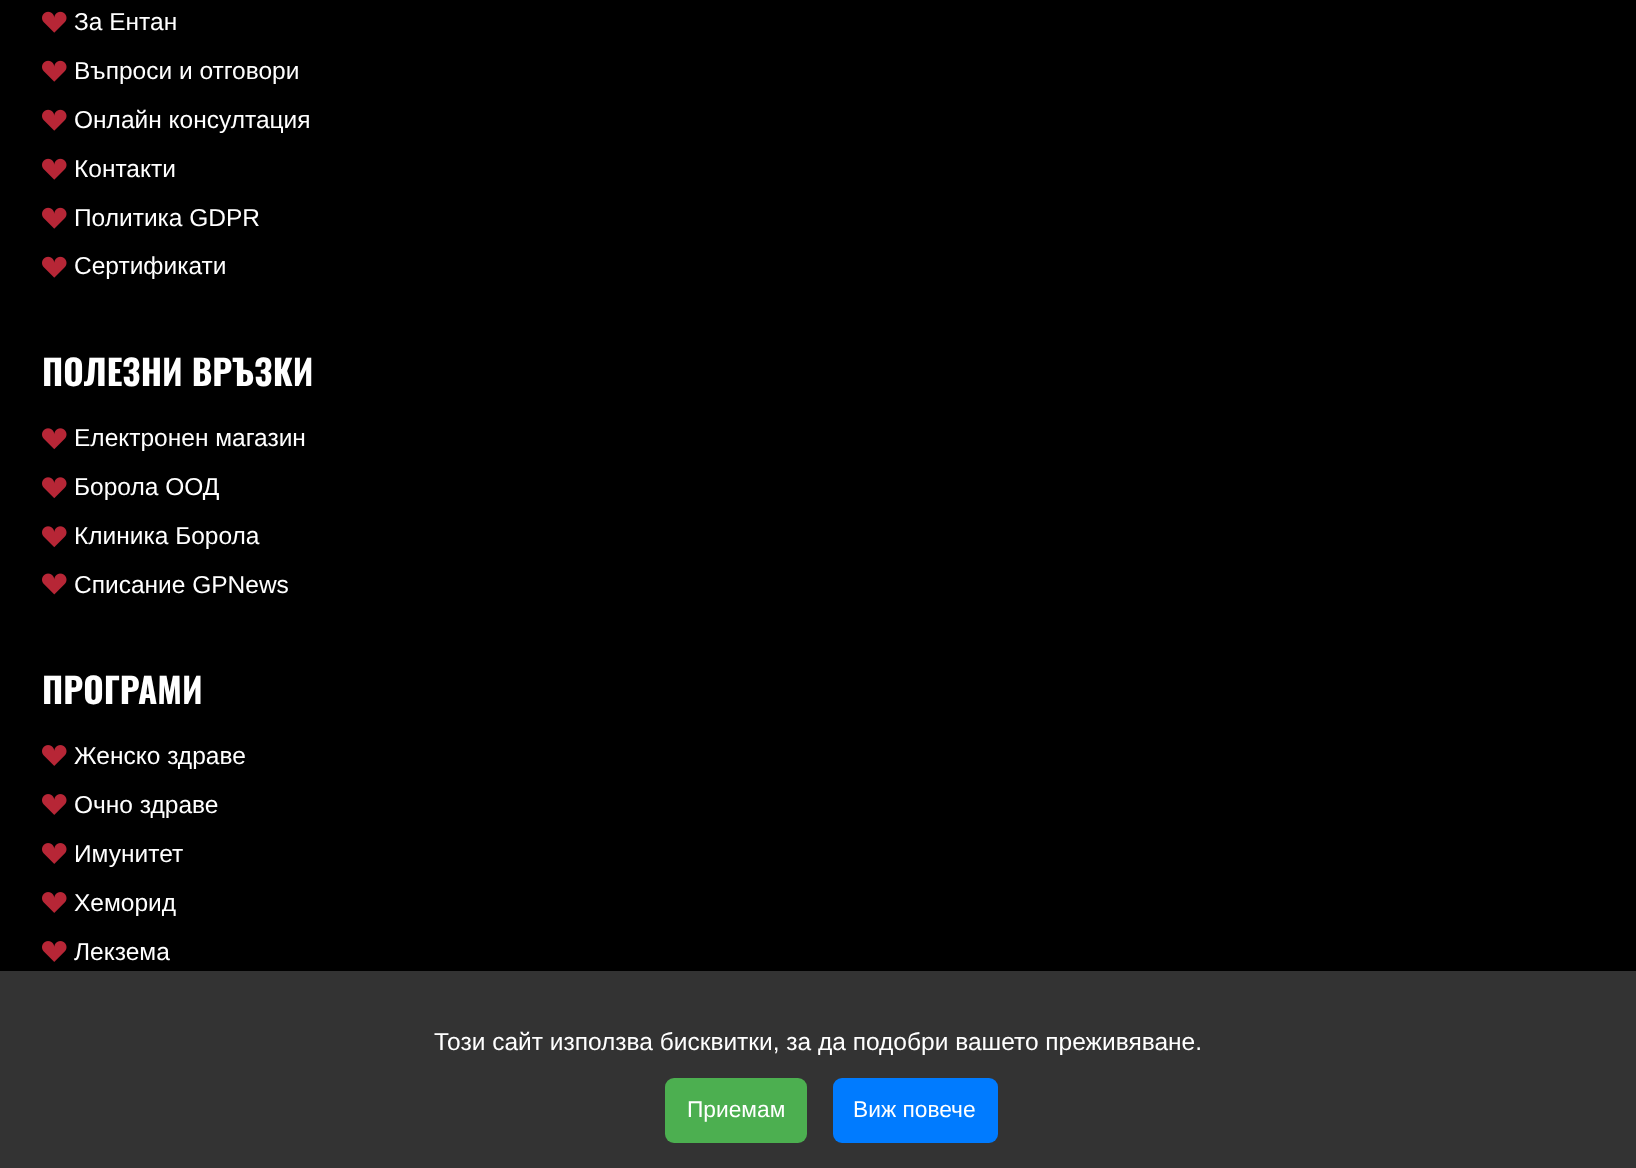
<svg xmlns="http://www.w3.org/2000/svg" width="1636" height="1168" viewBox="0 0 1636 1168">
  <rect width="100%" height="100%" fill="rgb(0,0,0)"/>
  <image x="42" y="11" width="25" height="22" href="pic1.png"/>
  <text x="74" y="30" font-family="Liberation Sans" font-size="24.5" fill="rgb(255,255,255)">За Ентан</text>
  <image x="42" y="60" width="25" height="22" href="pic1.png"/>
  <text x="74" y="79" font-family="Liberation Sans" font-size="24.5" fill="rgb(255,255,255)">Въпроси и отговори</text>
  <image x="42" y="109" width="25" height="22" href="pic1.png"/>
  <text x="74" y="128" font-family="Liberation Sans" font-size="24.5" fill="rgb(255,255,255)">Онлайн консултация</text>
  <image x="42" y="158" width="25" height="22" href="pic1.png"/>
  <text x="74" y="177" font-family="Liberation Sans" font-size="24.5" fill="rgb(255,255,255)">Контакти</text>
  <image x="42" y="207" width="25" height="22" href="pic1.png"/>
  <text x="74" y="226" font-family="Liberation Sans" font-size="24.5" fill="rgb(255,255,255)">Политика GDPR</text>
  <image x="42" y="256" width="25" height="22" href="pic1.png"/>
  <text x="74" y="274" font-family="Liberation Sans" font-size="24.5" fill="rgb(255,255,255)">Сертификати</text>
  <text x="42" y="386" font-family="Oswald" font-size="35" font-weight="bold" fill="rgb(255,255,255)">ПОЛЕЗНИ ВРЪЗКИ</text>
  <image x="42" y="428" width="25" height="22" href="pic2.png"/>
  <text x="74" y="446" font-family="Liberation Sans" font-size="24.5" fill="rgb(255,255,255)">Електронен магазин</text>
  <image x="42" y="477" width="25" height="22" href="pic2.png"/>
  <text x="74" y="495" font-family="Liberation Sans" font-size="24.5" fill="rgb(255,255,255)">Борола ООД</text>
  <image x="42" y="526" width="25" height="22" href="pic2.png"/>
  <text x="74" y="544" font-family="Liberation Sans" font-size="24.5" fill="rgb(255,255,255)">Клиника Борола</text>
  <image x="42" y="573" width="25" height="22" href="pic3.png"/>
  <text x="74" y="593" font-family="Liberation Sans" font-size="24.5" fill="rgb(255,255,255)">Списание GPNews</text>
  <text x="42" y="704" font-family="Oswald" font-size="35" font-weight="bold" fill="rgb(255,255,255)">ПРОГРАМИ</text>
  <image x="42" y="745" width="25" height="21" href="pic4.png"/>
  <text x="74" y="764" font-family="Liberation Sans" font-size="24.5" fill="rgb(255,255,255)">Женско здраве</text>
  <image x="42" y="794" width="25" height="21" href="pic4.png"/>
  <text x="74" y="813" font-family="Liberation Sans" font-size="24.5" fill="rgb(255,255,255)">Очно здраве</text>
  <image x="42" y="843" width="25" height="21" href="pic4.png"/>
  <text x="74" y="862" font-family="Liberation Sans" font-size="24.5" fill="rgb(255,255,255)">Имунитет</text>
  <image x="42" y="892" width="25" height="21" href="pic4.png"/>
  <text x="74" y="911" font-family="Liberation Sans" font-size="24.5" fill="rgb(255,255,255)">Хеморид</text>
  <image x="42" y="941" width="25" height="21" href="pic4.png"/>
  <text x="74" y="960" font-family="Liberation Sans" font-size="24.5" fill="rgb(255,255,255)">Лекзема</text>
  <rect x="0" y="971" width="1636" height="197" fill="rgb(51,51,51)"/>
  <text x="434" y="1050" font-family="Liberation Sans" font-size="24.5" fill="rgb(255,255,255)">Този сайт използва бисквитки, за да подобри вашето преживяване.</text>
  <rect x="665" y="1078" width="142" height="65" rx="9" fill="rgb(76,175,80)"/>
  <text x="687" y="1117" font-family="Liberation Sans" font-size="22.75" fill="rgb(255,255,255)">Приемам</text>
  <rect x="833" y="1078" width="165" height="65" rx="9" fill="rgb(0,123,255)"/>
  <text x="853" y="1117" font-family="Liberation Sans" font-size="22.75" fill="rgb(255,255,255)">Виж повече</text>
</svg>
